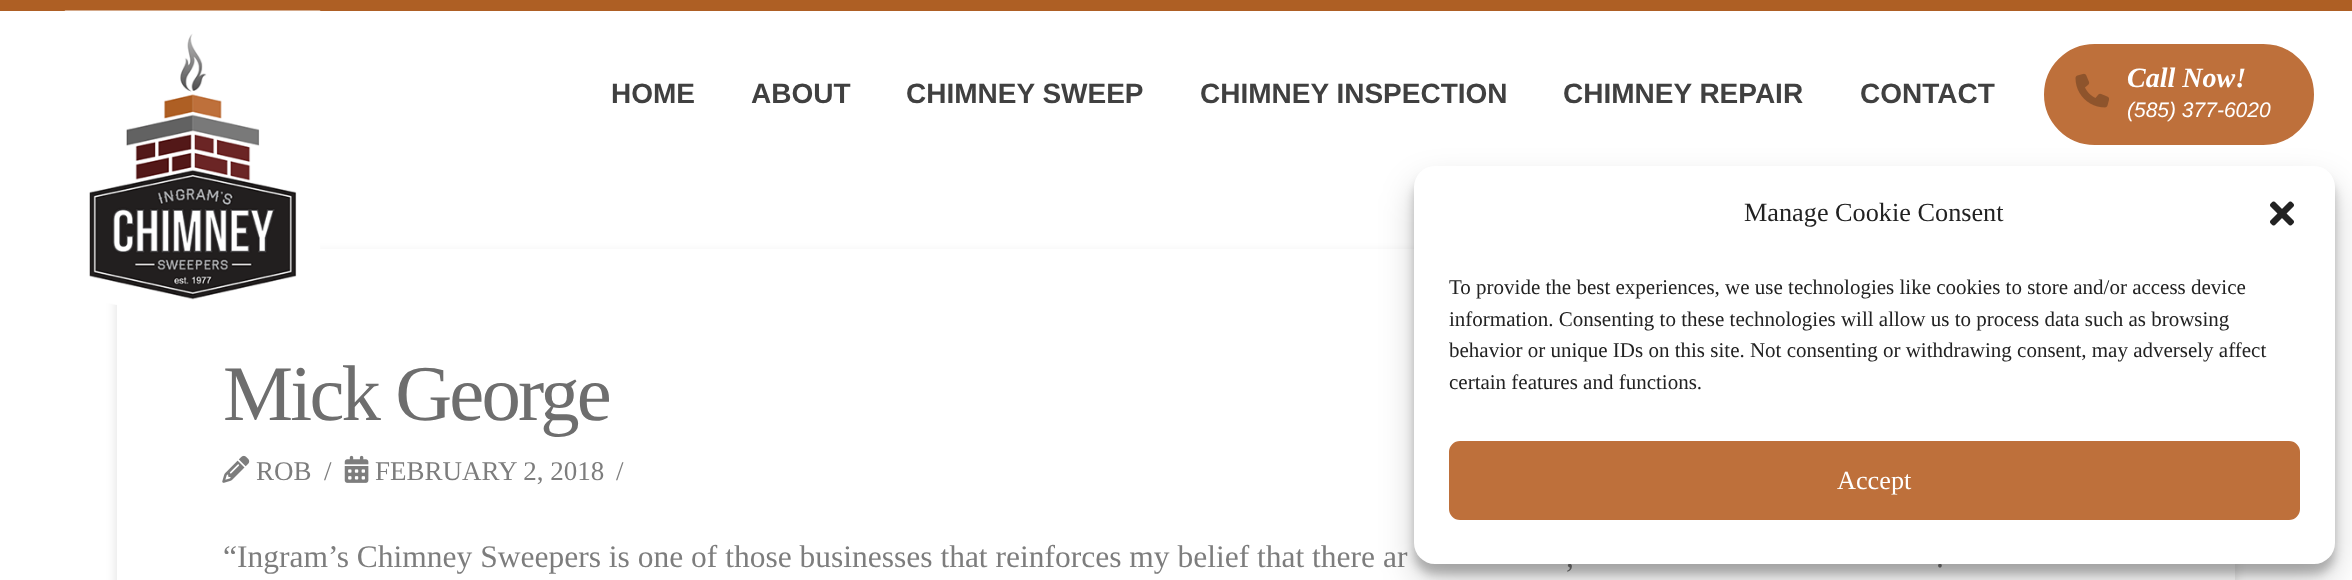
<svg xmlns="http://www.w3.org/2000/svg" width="2352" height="580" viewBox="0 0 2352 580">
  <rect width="100%" height="100%" fill="rgb(255,255,255)"/>
  <rect x="0" y="0" width="2352" height="11" fill="rgb(174,95,36)"/>
  <rect x="117" y="254" width="2118" height="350" rx="7" fill="rgba(0,0,0,0.13)" filter="blur(5.5px)"/>
  <rect x="117" y="249" width="2118" height="331" fill="rgb(255,255,255)"/>
  <image x="64" y="10" width="257" height="295" href="pic1.png"/>
  <g font-family="Liberation Sans" font-size="28" font-weight="bold" fill="rgb(64,64,64)">
    <text x="611" y="103">HOME</text>
    <text x="751" y="103">ABOUT</text>
    <text x="906" y="103">CHIMNEY SWEEP</text>
    <text x="1200" y="103">CHIMNEY INSPECTION</text>
    <text x="1563" y="103">CHIMNEY REPAIR</text>
    <text x="1860" y="103">CONTACT</text>
  </g>
  <rect x="2040.5" y="40.5" width="277" height="108" rx="54" fill="rgb(190,112,59)" stroke="rgb(255,255,255)" stroke-width="7"/>
  <image x="2075" y="73" width="34" height="35" href="pic2.png"/>
  <text x="2127" y="87" font-family="Liberation Serif" font-size="28" font-weight="bold" font-style="italic" fill="rgb(255,255,255)">Call Now!</text>
  <text x="2127" y="117" font-family="Liberation Sans" font-size="21" font-style="italic" fill="rgb(255,255,255)">(585) 377-6020</text>
  <text x="223" y="420" font-family="Liberation Serif" font-size="78.75" letter-spacing="-2.75" fill="rgb(110,110,110)">Mick George</text>
  <image x="222" y="455" width="28" height="28" href="pic3.png"/>
  <g font-family="Liberation Serif" font-size="27" fill="rgb(125,125,125)">
    <text x="256" y="480">ROB</text>
    <text x="324" y="480">/</text>
  </g>
  <image x="344" y="455" width="25" height="28" href="pic4.png"/>
  <g font-family="Liberation Serif" font-size="27" fill="rgb(125,125,125)">
    <text x="375" y="480">FEBRUARY 2, 2018</text>
    <text x="616" y="480">/</text>
  </g>
  <g font-family="Liberation Serif" font-size="31.5" fill="rgb(125,125,125)">
    <text x="223" y="567">“Ingram’s Chimney Sweepers is one of those businesses that reinforces my belief that there ar</text>
    <text x="1566" y="567">,</text>
    <text x="1936" y="567">.</text>
  </g>
  <rect x="1414" y="177" width="921" height="397" rx="21" fill="rgba(0,0,0,0.23)" filter="blur(5px)"/>
  <rect x="1414" y="184" width="921" height="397" rx="21" fill="rgba(0,0,0,0.19)" filter="blur(17.5px)"/>
  <rect x="1414" y="166" width="921" height="398" rx="21" fill="rgb(255,255,255)"/>
  <text x="1744" y="221" font-family="Liberation Serif" font-size="26.25" fill="rgb(34,34,34)">Manage Cookie Consent</text>
  <image x="2270" y="201" width="24" height="25" href="pic5.png"/>
  <g font-family="Liberation Serif" font-size="21" fill="rgb(34,34,34)">
    <text>
      <tspan x="1449" y="294">To provide the best experiences, we use technologies like cookies to store and/or access device</tspan>
      <tspan x="1449" y="326">information. Consenting to these technologies will allow us to process data such as browsing</tspan>
      <tspan x="1449" y="357">behavior or unique IDs on this site. Not consenting or withdrawing consent, may adversely affect</tspan>
      <tspan x="1449" y="389">certain features and functions.</tspan>
    </text>
  </g>
  <rect x="1450" y="442" width="849" height="77" rx="10" fill="rgb(190,112,59)" stroke="rgb(190,112,59)" stroke-width="2"/>
  <text x="1837" y="489" font-family="Liberation Serif" font-size="26.25" fill="rgb(255,255,255)">Accept</text>
</svg>
